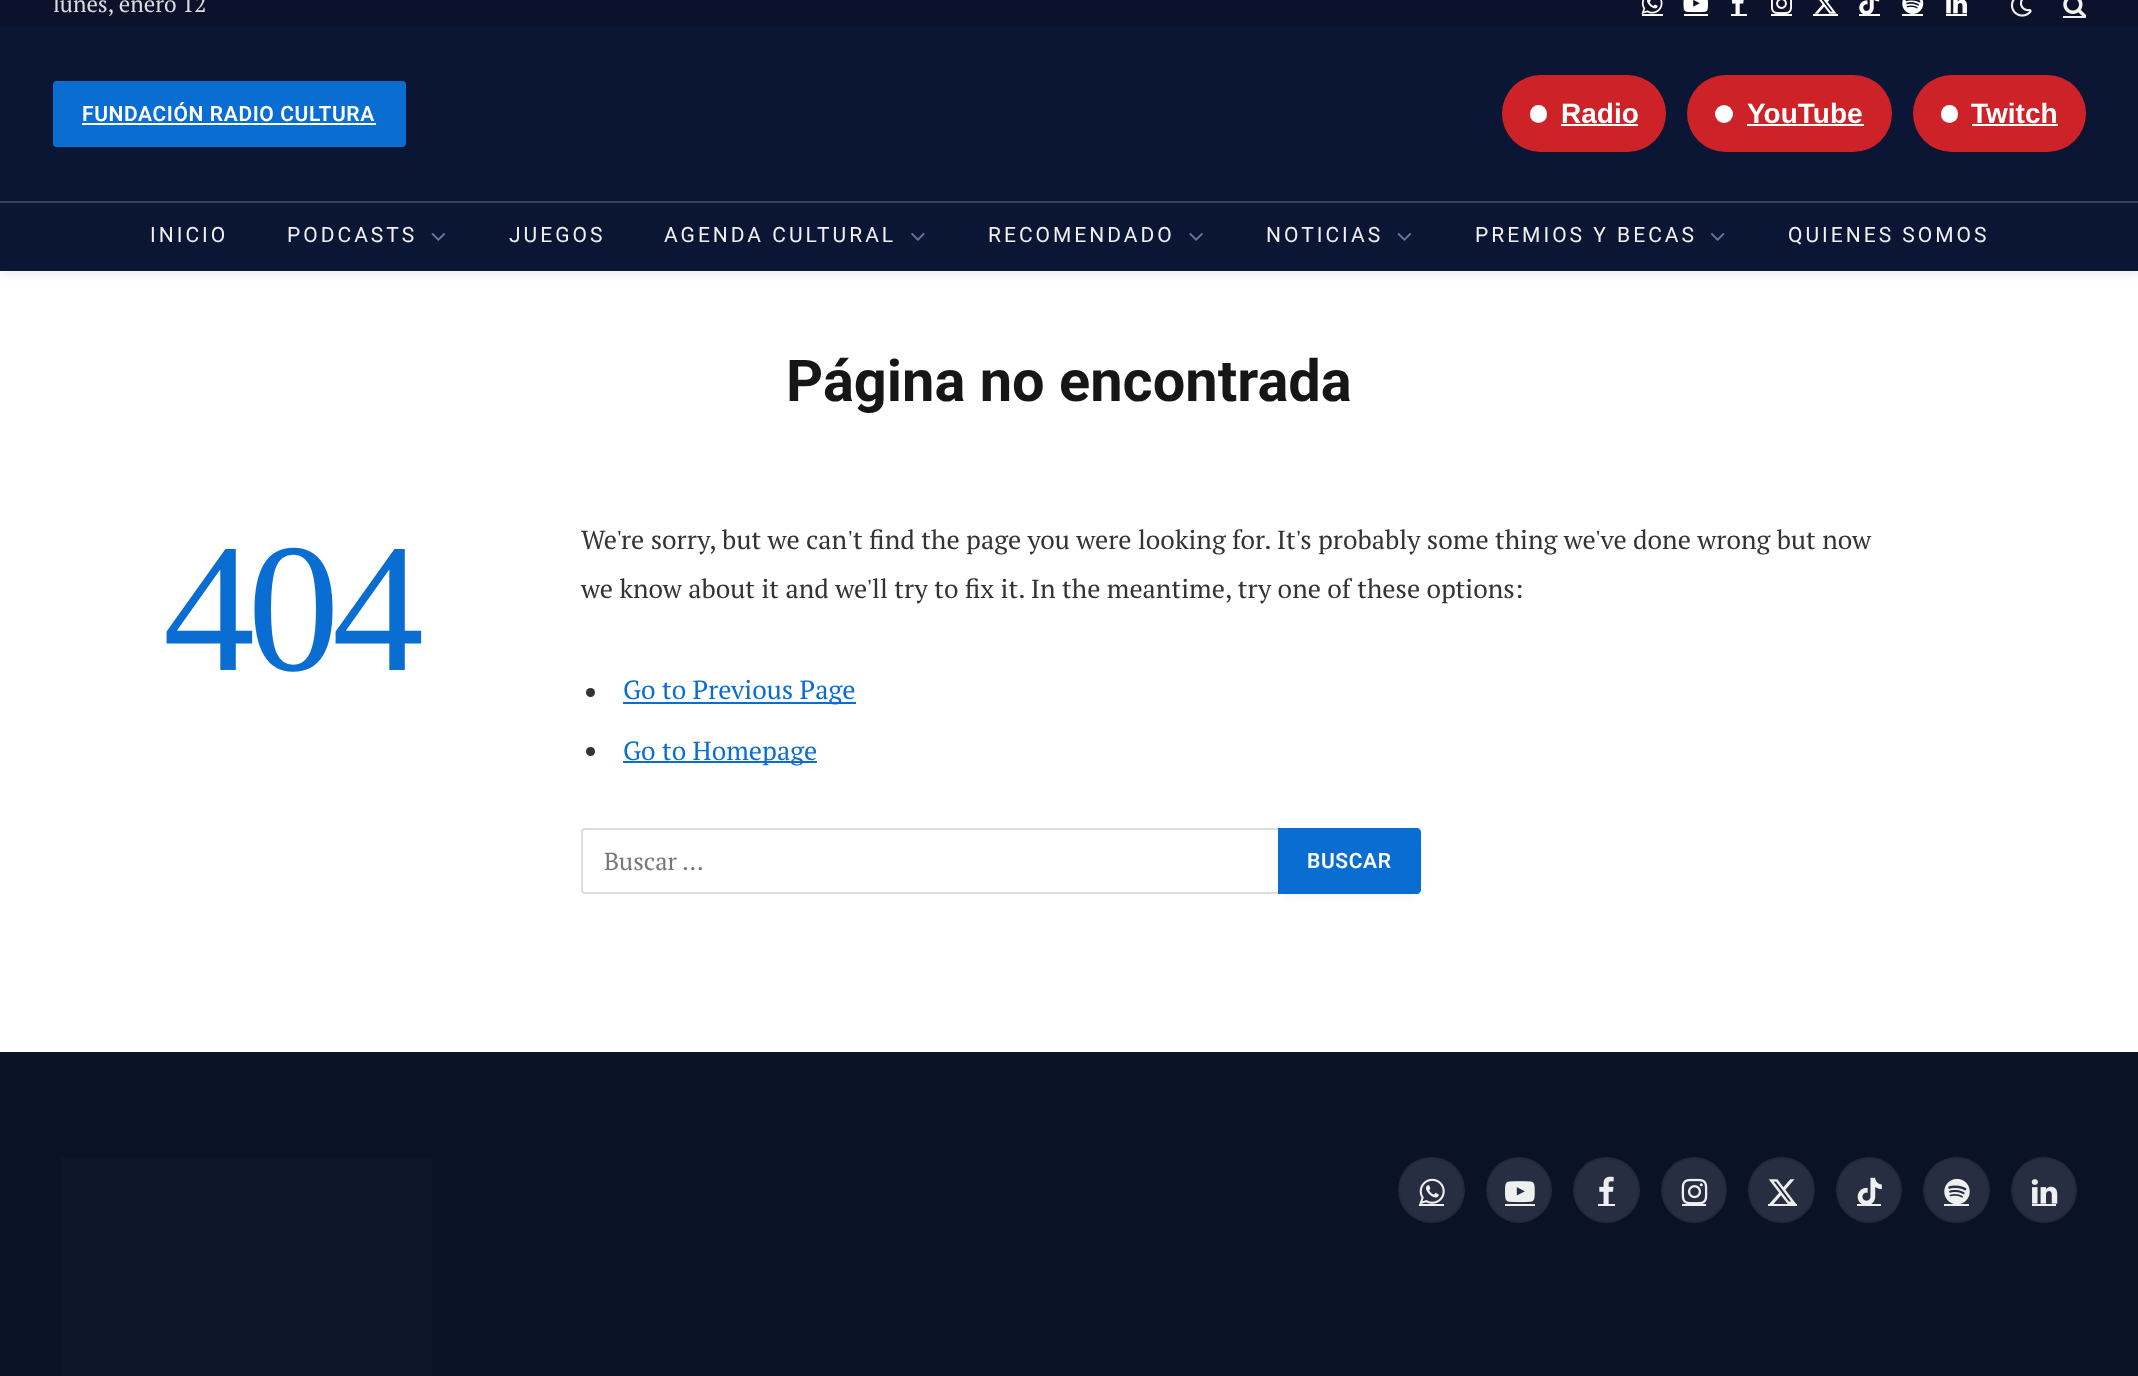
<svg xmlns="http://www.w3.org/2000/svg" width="2138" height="1376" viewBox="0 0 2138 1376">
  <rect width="100%" height="100%" fill="rgb(255,255,255)"/>
  <rect x="0" y="-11" width="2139" height="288" fill="rgba(0,0,0,0.05)" filter="blur(3.5px)"/>
  <rect x="0" y="0" width="2138" height="26" fill="rgb(12,18,43)"/>
  <text x="53" y="12" font-family="PT Serif" font-size="22.75" fill="rgb(221,221,221)">lunes, enero 12</text>
  <image x="1641" y="0" width="22" height="14" href="pic1.png"/>
  <rect x="1642" y="14" width="21" height="2" fill="rgb(255,255,255)"/>
  <image x="1683" y="0" width="25" height="13" href="pic2.png"/>
  <rect x="1684" y="14" width="24" height="2" fill="rgb(255,255,255)"/>
  <image x="1732" y="0" width="12" height="14" href="pic3.png"/>
  <rect x="1731" y="14" width="16" height="2" fill="rgb(255,255,255)"/>
  <image x="1771" y="0" width="21" height="14" href="pic4.png"/>
  <rect x="1771" y="14" width="21" height="2" fill="rgb(255,255,255)"/>
  <image x="1814" y="0" width="23" height="14" href="pic5.png"/>
  <rect x="1813" y="14" width="25" height="2" fill="rgb(255,255,255)"/>
  <image x="1859" y="0" width="21" height="14" href="pic6.png"/>
  <rect x="1859" y="14" width="21" height="2" fill="rgb(255,255,255)"/>
  <image x="1902" y="0" width="22" height="14" href="pic7.png"/>
  <rect x="1902" y="14" width="21" height="2" fill="rgb(255,255,255)"/>
  <image x="1946" y="0" width="21" height="14" href="pic8.png"/>
  <rect x="1946" y="14" width="21" height="2" fill="rgb(255,255,255)"/>
  <image x="2010" y="0" width="22" height="17" href="pic9.png"/>
  <image x="2063" y="0" width="23" height="16" href="pic10.png"/>
  <rect x="2063" y="16" width="23" height="2" fill="rgb(240,240,240)"/>
  <rect x="0" y="26" width="2138" height="175" fill="rgb(10,22,51)"/>
  <rect x="53" y="81" width="353" height="66" rx="4" fill="rgb(9,109,210)"/>
  <text x="82" y="121" font-family="Roboto" font-size="21" font-weight="600" letter-spacing="0.6" fill="rgb(255,255,255)">FUNDACIÓN RADIO CULTURA</text>
  <rect x="82" y="123" width="294" height="2" fill="rgb(255,255,255)"/>
  <rect x="1502" y="75" width="164" height="77" rx="38.5" fill="rgb(204,34,40)"/>
  <rect x="1530" y="105" width="17" height="18" rx="8.5" fill="rgb(255,255,255)"/>
  <text x="1561" y="123" font-family="Liberation Sans" font-size="28" font-weight="bold" fill="rgb(255,255,255)">Radio</text>
  <rect x="1561" y="124" width="77" height="2" fill="rgb(255,255,255)"/>
  <rect x="1687" y="75" width="205" height="77" rx="38.5" fill="rgb(204,34,40)"/>
  <circle cx="1724" cy="114" r="9" fill="rgb(255,255,255)"/>
  <text x="1747" y="123" font-family="Liberation Sans" font-size="28" font-weight="bold" fill="rgb(255,255,255)">YouTube</text>
  <rect x="1747" y="124" width="117" height="2" fill="rgb(255,255,255)"/>
  <rect x="1913" y="75" width="173" height="77" rx="38.5" fill="rgb(204,34,40)"/>
  <rect x="1941" y="105" width="17" height="18" rx="8.5" fill="rgb(255,255,255)"/>
  <text x="1971" y="123" font-family="Liberation Sans" font-size="28" font-weight="bold" fill="rgb(255,255,255)">Twitch</text>
  <rect x="1972" y="124" width="86" height="2" fill="rgb(255,255,255)"/>
  <rect x="0" y="203" width="2138" height="68" fill="rgb(10,22,51)"/>
  <rect x="0" y="201" width="2138" height="2" fill="rgb(48,73,81)"/>
  <g font-family="Roboto" font-size="21" letter-spacing="3" fill="rgb(240,240,240)">
    <text x="150" y="242">INICIO</text>
    <text x="287" y="242">PODCASTS</text>
  </g>
  <image x="431" y="233" width="15" height="8" href="pic11.png"/>
  <g font-family="Roboto" font-size="21" letter-spacing="3" fill="rgb(240,240,240)">
    <text x="509" y="242">JUEGOS</text>
    <text x="664" y="242">AGENDA CULTURAL</text>
  </g>
  <image x="911" y="233" width="14" height="8" href="pic12.png"/>
  <text x="988" y="242" font-family="Roboto" font-size="21" letter-spacing="3" fill="rgb(240,240,240)">RECOMENDADO</text>
  <image x="1189" y="233" width="14" height="8" href="pic13.png"/>
  <text x="1266" y="242" font-family="Roboto" font-size="21" letter-spacing="3" fill="rgb(240,240,240)">NOTICIAS</text>
  <image x="1397" y="233" width="15" height="8" href="pic11.png"/>
  <text x="1475" y="242" font-family="Roboto" font-size="21" letter-spacing="3" fill="rgb(240,240,240)">PREMIOS Y BECAS</text>
  <image x="1710" y="233" width="15" height="8" href="pic14.png"/>
  <text x="1788" y="242" font-family="Roboto" font-size="21" letter-spacing="3" fill="rgb(240,240,240)">QUIENES SOMOS</text>
  <text x="786" y="401" font-family="Roboto" font-size="57.75" font-weight="bold" fill="rgb(22,22,22)">Página no encontrada</text>
  <text x="163" y="670" font-family="Liberation Serif" font-size="184" letter-spacing="-7.5" fill="rgb(9,109,210)">404</text>
  <g font-family="PT Serif" font-size="26.25" fill="rgb(51,51,51)">
    <text>
      <tspan x="581" y="549">We're sorry, but we can't find the page you were looking for. It's probably some thing we've done wrong but now</tspan>
      <tspan x="581" y="598">we know about it and we'll try to fix it. In the meantime, try one of these options:</tspan>
    </text>
  </g>
  <circle cx="590.5" cy="692.5" r="4.5" fill="rgb(51,51,51)"/>
  <rect x="623" y="702" width="233" height="2" fill="rgb(9,109,210)"/>
  <text x="623" y="699" font-family="PT Serif" font-size="26.25" fill="rgb(9,109,210)">Go to Previous Page</text>
  <circle cx="590.5" cy="751.5" r="4.5" fill="rgb(51,51,51)"/>
  <rect x="623" y="761" width="194" height="2" fill="rgb(9,109,210)"/>
  <text x="623" y="760" font-family="PT Serif" font-size="26.25" fill="rgb(9,109,210)">Go to Homepage</text>
  <rect x="582" y="829" width="698" height="64" rx="3" fill="none" stroke="rgb(221,221,221)" stroke-width="2"/>
  <text x="604" y="870" font-family="PT Serif" font-size="24.5" fill="rgb(119,119,119)">Buscar …</text>
  <rect x="1285" y="838" width="129" height="53" fill="rgba(0,0,0,0.16)" filter="blur(6px)"/>
  <path d="M1278 828H1417C1419 828 1421 830 1421 832V890C1421 892 1419 894 1417 894H1278Z" fill="rgb(9,109,210)"/>
  <text x="1307" y="868" font-family="Roboto" font-size="21" font-weight="600" letter-spacing="0.6" fill="rgb(255,255,255)">BUSCAR</text>
  <rect x="0" y="1052" width="2138" height="324" fill="rgb(9,18,39)"/>
  <rect x="61" y="1157" width="371" height="219" fill="rgb(13,21,40)"/>
  <rect x="1398" y="1157" width="67" height="66" rx="33" fill="rgb(39,46,65)"/>
  <rect x="1399" y="1158" width="65" height="64" rx="32" fill="none" stroke="rgba(0,0,0,0.09)" stroke-width="2"/>
  <image x="1419" y="1178" width="26" height="26" href="pic15.png"/>
  <rect x="1419" y="1204" width="25" height="2" fill="rgb(239,239,239)"/>
  <circle cx="1519" cy="1190" r="33" fill="rgb(39,46,65)"/>
  <circle cx="1519" cy="1190" r="32" fill="none" stroke="rgba(0,0,0,0.09)" stroke-width="2"/>
  <image x="1505" y="1181" width="30" height="22" href="pic16.png"/>
  <rect x="1505" y="1204" width="30" height="2" fill="rgb(239,239,239)"/>
  <rect x="1573" y="1157" width="67" height="66" rx="33" fill="rgb(39,46,65)"/>
  <rect x="1574" y="1158" width="65" height="64" rx="32" fill="none" stroke="rgba(0,0,0,0.09)" stroke-width="2"/>
  <image x="1599" y="1176" width="15" height="28" href="pic17.png"/>
  <rect x="1598" y="1204" width="17" height="2" fill="rgb(239,239,239)"/>
  <circle cx="1694" cy="1190" r="33" fill="rgb(39,46,65)"/>
  <circle cx="1694" cy="1190" r="32" fill="none" stroke="rgba(0,0,0,0.09)" stroke-width="2"/>
  <image x="1681" y="1178" width="27" height="26" href="pic18.png"/>
  <rect x="1682" y="1204" width="24" height="2" fill="rgb(239,239,239)"/>
  <rect x="1748" y="1157" width="67" height="66" rx="33" fill="rgb(39,46,65)"/>
  <rect x="1749" y="1158" width="65" height="64" rx="32" fill="none" stroke="rgba(0,0,0,0.09)" stroke-width="2"/>
  <image x="1768" y="1179" width="28" height="25" href="pic19.png"/>
  <rect x="1768" y="1204" width="29" height="2" fill="rgb(239,239,239)"/>
  <circle cx="1869" cy="1190" r="33" fill="rgb(39,46,65)"/>
  <circle cx="1869" cy="1190" r="32" fill="none" stroke="rgba(0,0,0,0.09)" stroke-width="2"/>
  <image x="1857" y="1177" width="25" height="27" href="pic20.png"/>
  <rect x="1857" y="1204" width="24" height="2" fill="rgb(239,239,239)"/>
  <rect x="1923" y="1157" width="67" height="66" rx="33" fill="rgb(39,46,65)"/>
  <rect x="1924" y="1158" width="65" height="64" rx="32" fill="none" stroke="rgba(0,0,0,0.09)" stroke-width="2"/>
  <image x="1944" y="1178" width="26" height="26" href="pic21.png"/>
  <rect x="1944" y="1204" width="25" height="2" fill="rgb(239,239,239)"/>
  <circle cx="2044" cy="1190" r="33" fill="rgb(39,46,65)"/>
  <circle cx="2044" cy="1190" r="32" fill="none" stroke="rgba(0,0,0,0.09)" stroke-width="2"/>
  <image x="2031" y="1179" width="27" height="25" href="pic22.png"/>
  <rect x="2032" y="1204" width="24" height="2" fill="rgb(239,239,239)"/>
</svg>
